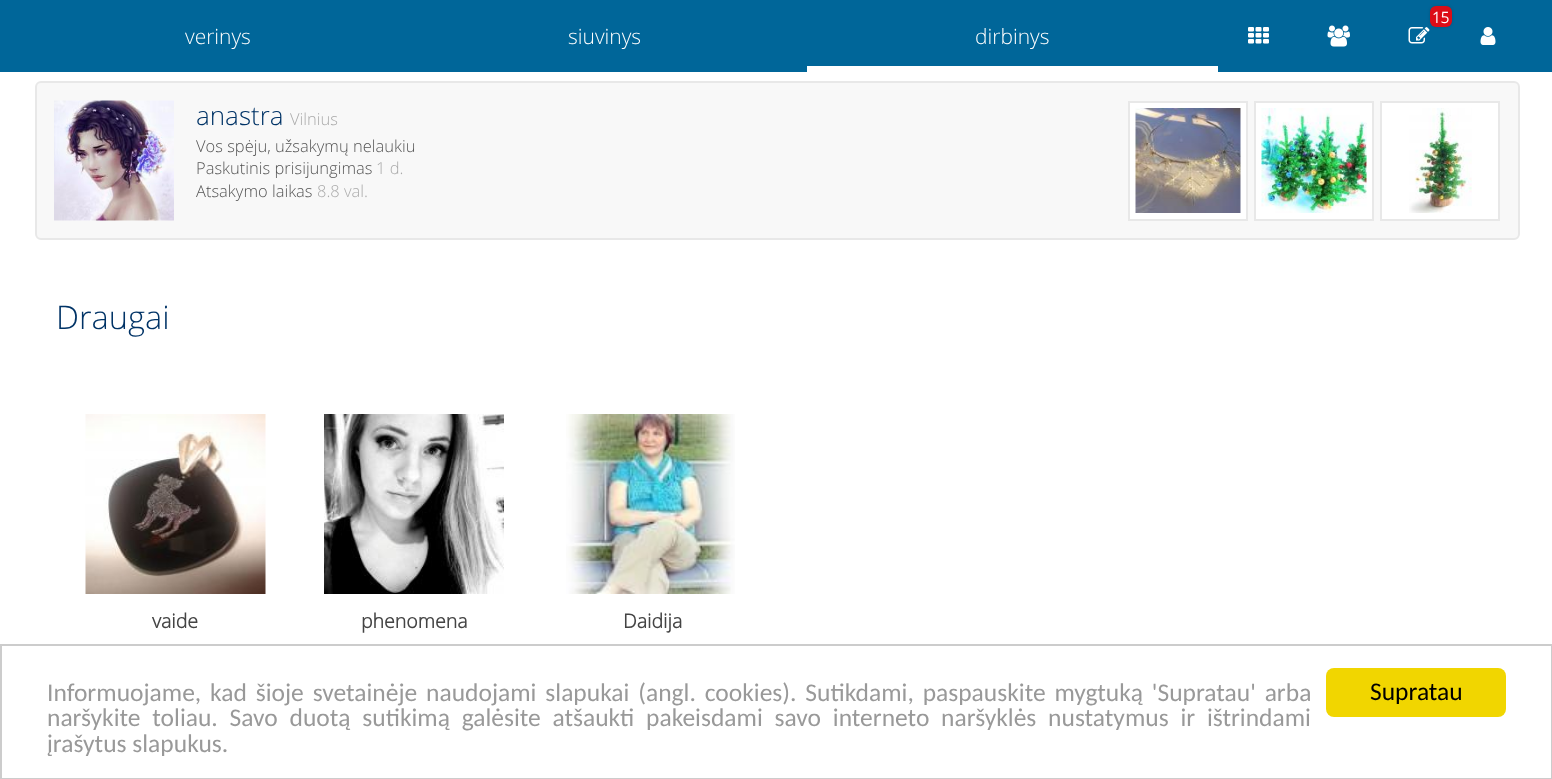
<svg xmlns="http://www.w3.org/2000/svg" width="1552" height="779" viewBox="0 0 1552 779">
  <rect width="100%" height="100%" fill="rgb(255,255,255)"/>
  <rect x="0" y="0" width="1552" height="72" fill="rgb(0,102,153)"/>
  <image x="1408" y="27" width="22" height="17" href="pic1.png"/>
  <rect x="1430" y="6" width="22" height="21" rx="6" fill="rgba(0,0,0,0.15)" filter="blur(1.5px)"/>
  <rect x="1430" y="6" width="22" height="21" rx="6" fill="rgb(220,13,23)"/>
  <text x="1432" y="23" font-family="Open Sans" font-size="15" font-weight="bold" fill="rgb(255,255,255)">15</text>
  <image x="1248" y="27" width="21" height="17" href="pic2.png"/>
  <image x="1327" y="25" width="23" height="22" href="pic3.png"/>
  <image x="1480" y="27" width="16" height="18" href="pic4.png"/>
  <g font-family="Open Sans" font-size="21" font-weight="300" fill="rgb(255,255,255)">
    <text x="185" y="44">verinys</text>
    <text x="568" y="44">siuvinys</text>
  </g>
  <rect x="807" y="66" width="411" height="6" fill="rgb(255,255,255)"/>
  <text x="975" y="44" font-family="Open Sans" font-size="21" font-weight="300" fill="rgb(255,255,255)">dirbinys</text>
  <rect x="36" y="82" width="1483" height="157" rx="5" fill="rgb(248,248,248)" stroke="rgb(232,232,232)" stroke-width="2"/>
  <image x="54" y="100" width="120" height="121" href="pic5.png"/>
  <text x="196" y="125" font-family="Open Sans" font-size="26" font-weight="300" fill="rgb(0,51,102)">anastra</text>
  <text x="290" y="125" font-family="Open Sans" font-size="16.5" font-weight="300" fill="rgb(170,170,170)">Vilnius</text>
  <g font-family="Open Sans" font-size="16.5" font-weight="300" fill="rgb(85,85,85)">
    <text>
      <tspan x="196" y="152">Vos spėju, užsakymų nelaukiu</tspan>
      <tspan x="196" y="174">Paskutinis prisijungimas</tspan>
    </text>
  </g>
  <text x="376" y="174" font-family="Open Sans" font-size="16.5" font-weight="300" fill="rgb(170,170,170)">1 d.</text>
  <text x="196" y="197" font-family="Open Sans" font-size="16.5" font-weight="300" fill="rgb(85,85,85)">Atsakymo laikas</text>
  <text x="317" y="197" font-family="Open Sans" font-size="16.5" font-weight="300" fill="rgb(170,170,170)">8.8 val.</text>
  <rect x="1129" y="102" width="118" height="118" fill="rgb(255,255,255)" stroke="rgb(232,232,232)" stroke-width="2"/>
  <image x="1135" y="108" width="106" height="105" href="pic6.png"/>
  <rect x="1255" y="102" width="118" height="118" fill="rgb(255,255,255)" stroke="rgb(232,232,232)" stroke-width="2"/>
  <image x="1261" y="108" width="106" height="105" href="pic7.png"/>
  <rect x="1381" y="102" width="118" height="118" fill="rgb(255,255,255)" stroke="rgb(232,232,232)" stroke-width="2"/>
  <image x="1409" y="108" width="63" height="105" href="pic8.png"/>
  <text x="56" y="329" font-family="Open Sans" font-size="32.5" font-weight="300" fill="rgb(0,51,102)">Draugai</text>
  <image x="85" y="414" width="181" height="180" href="pic9.png"/>
  <text x="152" y="628" font-family="Open Sans" font-size="19.5" font-weight="bold" fill="rgb(68,68,68)">vaide</text>
  <image x="324" y="414" width="180" height="180" href="pic10.png"/>
  <text x="361" y="628" font-family="Open Sans" font-size="19.5" font-weight="bold" fill="rgb(68,68,68)">phenomena</text>
  <image x="566" y="414" width="169" height="180" href="pic11.png"/>
  <text x="623" y="628" font-family="Open Sans" font-size="19.5" font-weight="bold" fill="rgb(68,68,68)">Daidija</text>
  <rect x="1" y="645" width="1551" height="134" fill="none" stroke="rgb(204,204,204)" stroke-width="2"/>
  <g font-family="Carlito" font-size="25.5" fill="rgb(153,153,153)">
    <text>
      <tspan x="47" y="701" word-spacing="3.1">Informuojame, kad šioje svetainėje naudojami slapukai (angl. cookies). Sutikdami, paspauskite mygtuką 'Supratau' arba</tspan>
      <tspan x="47" y="726" word-spacing="6">naršykite toliau. Savo duotą sutikimą galėsite atšaukti pakeisdami savo interneto naršyklės nustatymus ir ištrindami</tspan>
      <tspan x="47" y="752">įrašytus slapukus.</tspan>
    </text>
  </g>
  <rect x="1326" y="668" width="180" height="49" rx="8" fill="rgb(241,214,0)"/>
  <text x="1370" y="700" font-family="Carlito" font-size="25.5" fill="rgb(0,0,0)">Supratau</text>
</svg>
